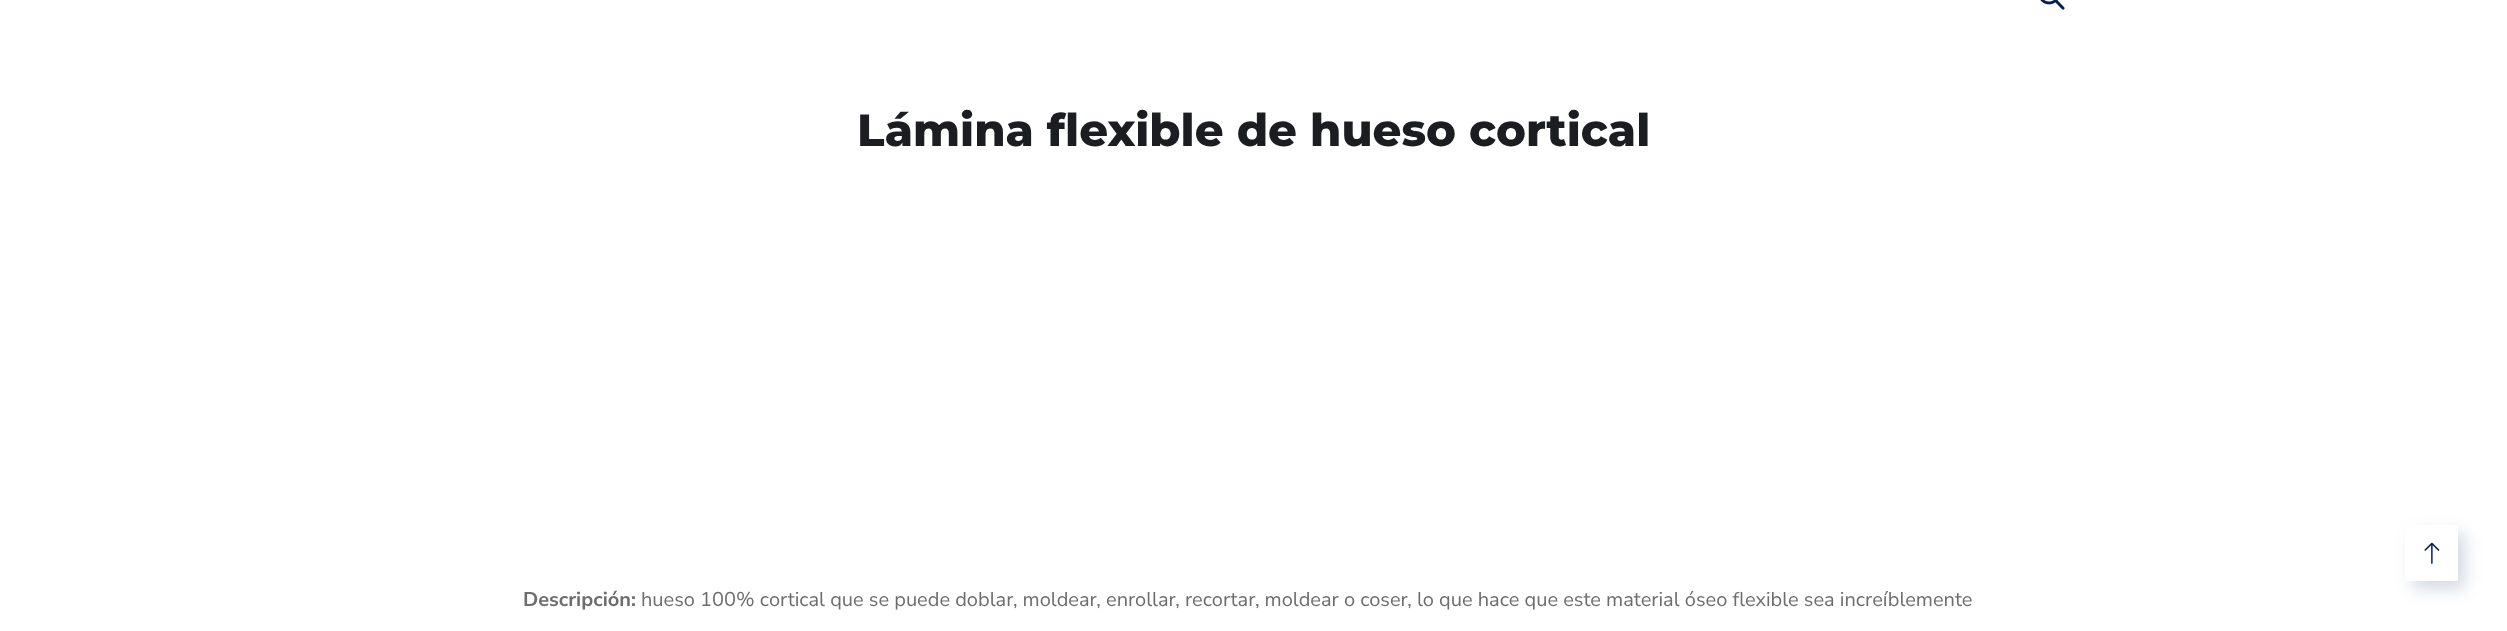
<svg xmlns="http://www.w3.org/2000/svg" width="2507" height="631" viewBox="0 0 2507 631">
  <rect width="100%" height="100%" fill="rgb(255,255,255)"/>
  <image x="2040" y="0" width="25" height="10" href="pic1.png"/>
  <text x="857" y="146" font-family="Montserrat" font-size="45" font-weight="800" fill="rgb(27,29,33)">Lámina flexible de hueso cortical</text>
  <text x="523" y="606" font-family="Nunito Sans" font-size="20" font-weight="bold" fill="rgb(109,109,109)">Descripción:</text>
  <text x="641" y="606" font-family="Nunito Sans" font-size="20" fill="rgb(109,109,109)">hueso 100% cortical que se puede doblar, moldear, enrollar, recortar, moldear o coser, lo que hace que este material óseo flexible sea increíblemente</text>
  <rect x="2413" y="533" width="52" height="56" rx="2.5" fill="rgba(42,67,113,0.2)" filter="blur(8px)"/>
  <rect x="2405" y="525" width="53" height="56" rx="2.5" fill="rgb(255,255,255)"/>
  <image x="2424" y="542" width="16" height="22" href="pic2.png"/>
</svg>
